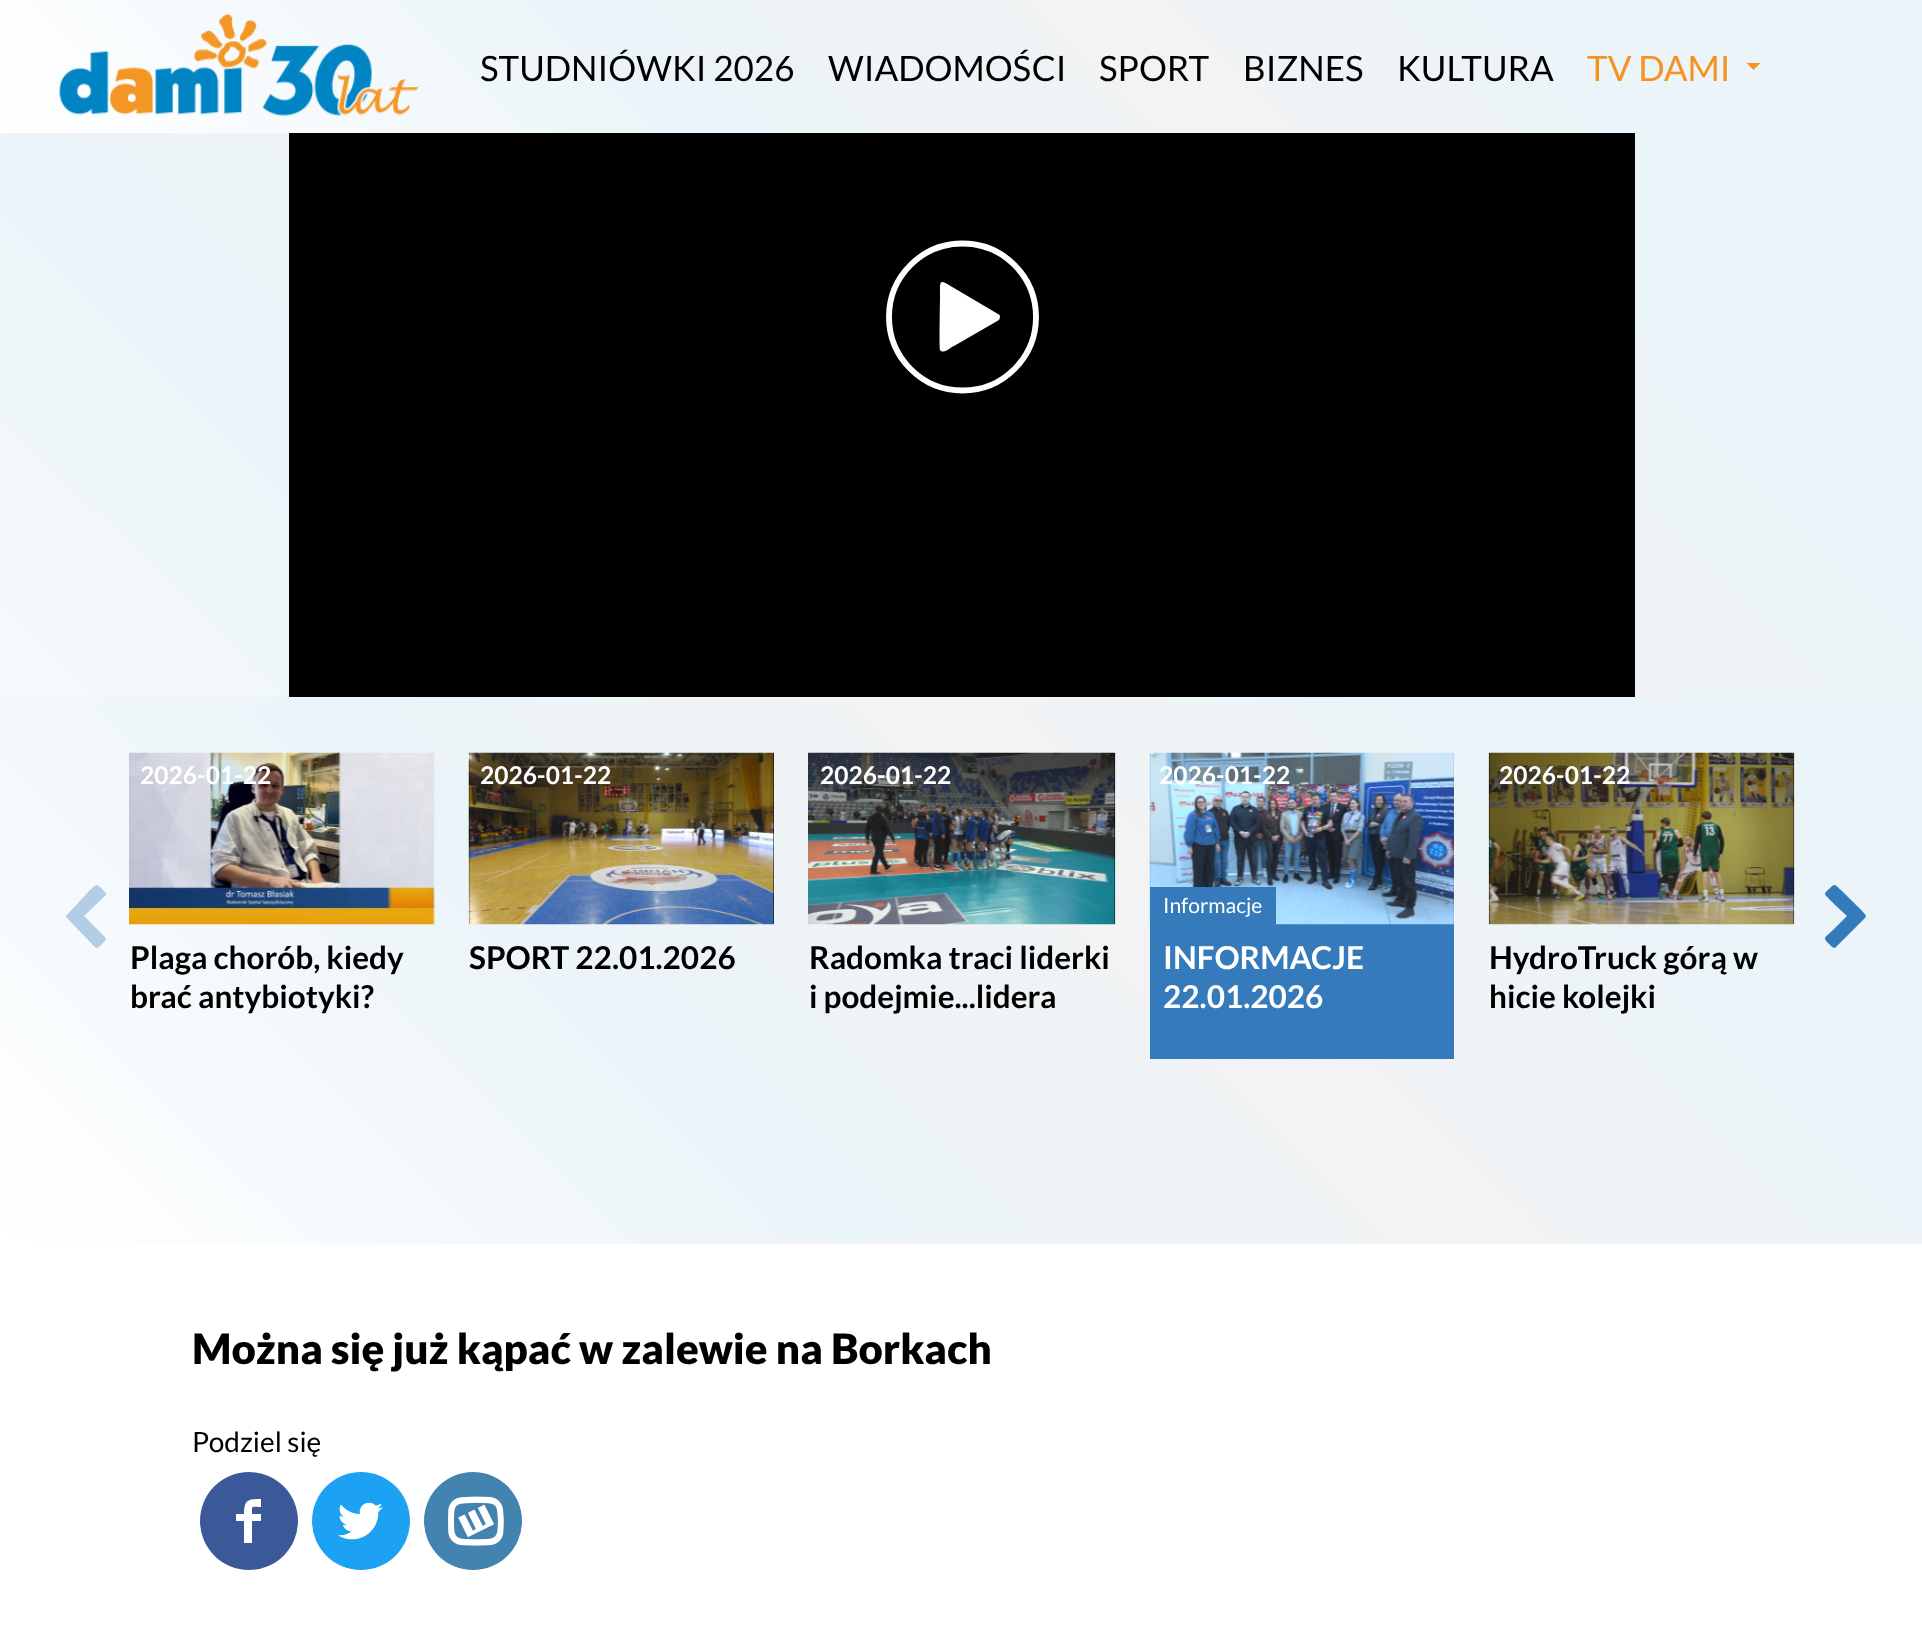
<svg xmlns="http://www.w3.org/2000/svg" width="1922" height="1627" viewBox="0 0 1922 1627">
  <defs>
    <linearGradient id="g1" gradientUnits="userSpaceOnUse" x1="448" y1="581" x2="1476" y2="-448"><stop offset="0" stop-color="rgb(255,255,255)"/><stop offset="0.35" stop-color="rgb(235,244,249)"/><stop offset="0.6" stop-color="rgb(242,243,244)"/><stop offset="0.8" stop-color="rgb(235,244,249)"/></linearGradient>
    <linearGradient id="g2" gradientUnits="userSpaceOnUse" x1="154" y1="1399" x2="1769" y2="-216"><stop offset="0" stop-color="rgb(255,255,255)"/><stop offset="0.35" stop-color="rgb(235,244,249)"/><stop offset="0.6" stop-color="rgb(242,243,244)"/><stop offset="0.8" stop-color="rgb(235,244,249)"/></linearGradient>
    <linearGradient id="g3" gradientUnits="userSpaceOnUse" x1="344" y1="1588" x2="1579" y2="353"><stop offset="0" stop-color="rgb(255,255,255)"/><stop offset="0.35" stop-color="rgb(235,244,249)"/><stop offset="0.6" stop-color="rgb(242,243,244)"/><stop offset="0.8" stop-color="rgb(235,244,249)"/></linearGradient>
  </defs>
  <rect width="100%" height="100%" fill="rgb(255,255,255)"/>
  <rect x="0" y="0" width="1922" height="133" fill="url(#g1)"/>
  <image x="59" y="13" width="360" height="104" href="pic1.png"/>
  <g font-family="Lato" font-size="35" fill="rgb(0,0,0)">
    <text x="480" y="81">STUDNIÓWKI 2026</text>
    <text x="828" y="81">WIADOMOŚCI</text>
    <text x="1099" y="81">SPORT</text>
    <text x="1243" y="81">BIZNES</text>
    <text x="1397" y="81">KULTURA</text>
  </g>
  <text x="1587" y="81" font-family="Lato" font-size="35" fill="rgb(246,146,32)">TV DAMI</text>
  <path d="M1746.5 63H1760.5L1753.5 70Z" fill="rgb(246,146,32)"/>
  <rect x="0" y="133" width="1922" height="564" fill="url(#g2)"/>
  <rect x="289" y="133" width="1346" height="564" fill="rgb(0,0,0)"/>
  <circle cx="962.5" cy="317" r="73.5" fill="none" stroke="rgb(255,255,255)" stroke-width="5.9"/>
  <path d="M998 314L954 288C939 279 940 279 940 296C940 302 939 348 940 350C944 355 952 346 954 346L999 320C1000 318 1001 315 998 314Z" fill="rgb(255,255,255)"/>
  <rect x="0" y="697" width="1922" height="547" fill="url(#g3)"/>
  <path d="M105 896L84 916L102 934C108 940 107 939 101 945C96 950 96 948 90 942L66 917V916L90 890C96 885 96 883 101 888L106 893C106 894 106 895 105 896Z" fill="rgb(178,205,229)"/>
  <image x="129" y="752" width="306" height="173" href="pic2.png"/>
  <text x="140" y="784" font-family="Lato" font-size="24.5" font-weight="bold" fill="rgb(255,255,255)">2026-01-22</text>
  <g font-family="Lato" font-size="31.5" font-weight="bold" fill="rgb(0,0,0)">
    <text>
      <tspan x="130" y="969">Plaga chorób, kiedy</tspan>
      <tspan x="130" y="1008">brać antybiotyki?</tspan>
    </text>
  </g>
  <rect x="469" y="753" width="305" height="171" fill="rgb(0,0,0)"/>
  <image x="468" y="752" width="306" height="173" href="pic3.png"/>
  <text x="480" y="784" font-family="Lato" font-size="24.5" font-weight="bold" fill="rgb(255,255,255)">2026-01-22</text>
  <text x="469" y="969" font-family="Lato" font-size="31.5" font-weight="bold" fill="rgb(0,0,0)">SPORT 22.01.2026</text>
  <rect x="1114" y="753" width="1" height="171" fill="rgb(0,0,0)"/>
  <image x="808" y="752" width="308" height="173" href="pic4.png"/>
  <text x="820" y="784" font-family="Lato" font-size="24.5" font-weight="bold" fill="rgb(255,255,255)">2026-01-22</text>
  <g font-family="Lato" font-size="31.5" font-weight="bold" fill="rgb(0,0,0)">
    <text>
      <tspan x="809" y="969">Radomka traci liderki</tspan>
      <tspan x="809" y="1008">i podejmie...lidera</tspan>
    </text>
  </g>
  <rect x="1150" y="753" width="304" height="306" fill="rgb(53,122,187)"/>
  <image x="1149" y="752" width="305" height="173" href="pic5.png"/>
  <text x="1159" y="784" font-family="Lato" font-size="24.5" font-weight="bold" fill="rgb(255,255,255)">2026-01-22</text>
  <rect x="1150" y="887" width="126" height="38" fill="rgb(53,122,187)"/>
  <text x="1163" y="913" font-family="Lato" font-size="21" fill="rgb(255,255,255)">Informacje</text>
  <g font-family="Lato" font-size="31.5" font-weight="bold" fill="rgb(255,255,255)">
    <text>
      <tspan x="1163" y="969">INFORMACJE</tspan>
      <tspan x="1163" y="1008">22.01.2026</tspan>
    </text>
  </g>
  <rect x="1489" y="753" width="305" height="171" fill="rgb(0,0,0)"/>
  <image x="1488" y="752" width="307" height="173" href="pic6.png"/>
  <text x="1499" y="784" font-family="Lato" font-size="24.5" font-weight="bold" fill="rgb(255,255,255)">2026-01-22</text>
  <g font-family="Lato" font-size="31.5" font-weight="bold" fill="rgb(0,0,0)">
    <text>
      <tspan x="1489" y="969">HydroTruck górą w</tspan>
      <tspan x="1489" y="1008">hicie kolejki</tspan>
    </text>
  </g>
  <path d="M1865 918L1836 947C1833 950 1830 944 1828 943C1822 937 1826 937 1833 930L1847 916C1844 913 1825 896 1825 894C1825 892 1828 890 1829 889C1835 883 1834 884 1841 890L1851 900C1853 902 1866 914 1866 916Z" fill="rgb(53,122,187)"/>
  <text x="192" y="1364" font-family="Lato" font-size="42" font-weight="900" fill="rgb(0,0,0)">Można się już kąpać w zalewie na Borkach</text>
  <text x="192" y="1452" font-family="Lato" font-size="28" fill="rgb(0,0,0)">Podziel się</text>
  <circle cx="249" cy="1521" r="49" fill="rgb(59,89,152)"/>
  <path d="M261 1507C251 1507 252 1505 252 1514H261V1521H252V1543H244V1521H236V1514H244C244 1500 248 1499 261 1499Z" fill="rgb(255,255,255)"/>
  <circle cx="361" cy="1521" r="49" fill="rgb(29,161,242)"/>
  <image x="338" y="1502" width="45" height="38" href="pic7.png"/>
  <circle cx="473" cy="1521" r="49" fill="rgb(67,131,175)"/>
  <image x="448" y="1496" width="56" height="50" href="pic8.png"/>
</svg>
